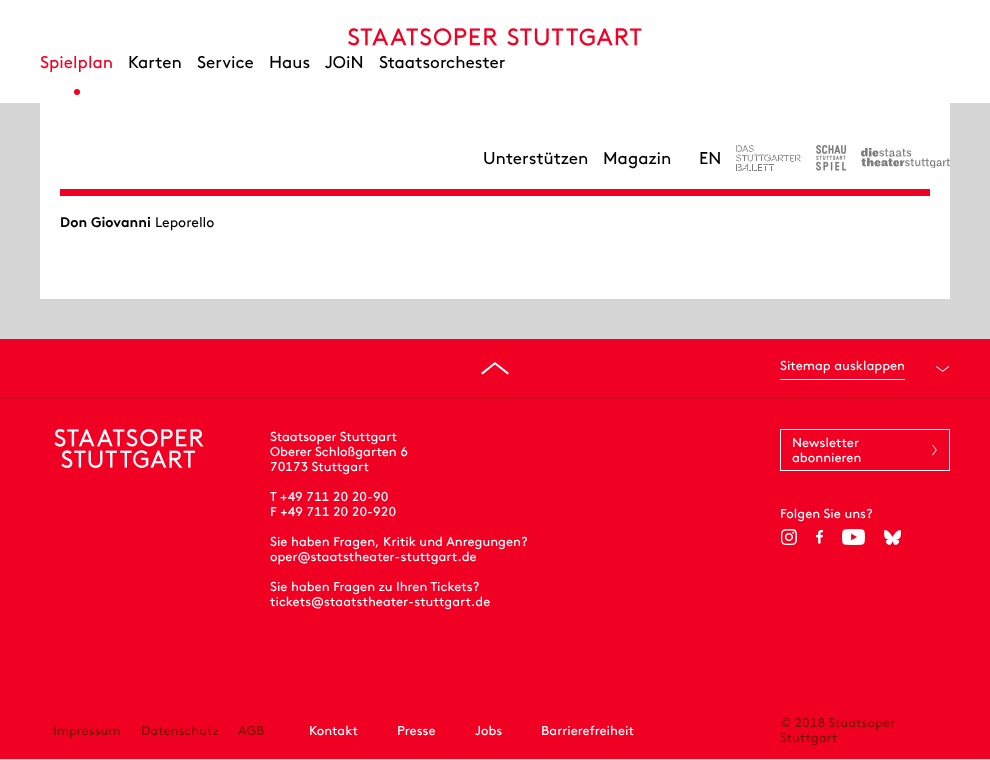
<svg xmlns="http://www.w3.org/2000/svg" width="990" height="760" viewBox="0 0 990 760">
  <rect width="100%" height="100%" fill="rgb(214,214,214)"/>
  <rect x="0" y="0" width="990" height="103" fill="rgb(255,255,255)"/>
  <image x="348" y="28" width="294" height="18" href="pic1.png"/>
  <text x="40" y="68" font-family="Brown" font-size="17" fill="rgb(240,0,35)">Spielplan</text>
  <circle cx="77" cy="92" r="3" fill="rgb(240,0,35)"/>
  <g font-family="Brown" font-size="17" fill="rgb(0,0,0)">
    <text x="128" y="68">Karten</text>
    <text x="197" y="68">Service</text>
    <text x="269" y="68">Haus</text>
    <text x="325" y="68">JOiN</text>
    <text x="379" y="68">Staatsorchester</text>
  </g>
  <rect x="40" y="103" width="910" height="196" fill="rgb(255,255,255)"/>
  <g font-family="Brown" font-size="17" fill="rgb(0,0,0)">
    <text x="483" y="164">Unterstützen</text>
    <text x="603" y="164">Magazin</text>
    <text x="699" y="164">EN</text>
  </g>
  <image x="736" y="145" width="65" height="26" href="pic2.png"/>
  <image x="816" y="145" width="30" height="26" href="pic3.png"/>
  <image x="861" y="148" width="89" height="20" href="pic4.png"/>
  <rect x="60" y="189" width="870" height="7" fill="rgb(240,0,35)"/>
  <text x="60" y="227" font-family="Brown" font-size="14" font-weight="bold" fill="rgb(0,0,0)">Don Giovanni</text>
  <text x="155" y="227" font-family="Brown" font-size="14" fill="rgb(0,0,0)">Leporello</text>
  <rect x="0" y="339" width="990" height="420" fill="rgb(240,0,35)"/>
  <path d="M509 373L507.5 374.5L495 364.5L482.5 374.5L481 373L495 362Z" fill="rgb(255,255,255)"/>
  <rect x="780" y="379" width="125" height="1" fill="rgb(255,255,255)"/>
  <text x="780" y="370" font-family="Brown" font-size="13" fill="rgb(255,255,255)">Sitemap ausklappen</text>
  <image x="936" y="366" width="14" height="6" href="pic5.png"/>
  <rect x="0" y="398" width="990" height="1" fill="rgb(205,5,25)"/>
  <image x="54" y="429" width="150" height="39" href="pic6.png"/>
  <g font-family="Brown" font-size="13" fill="rgb(255,255,255)">
    <text>
      <tspan x="270" y="441">Staatsoper Stuttgart</tspan>
      <tspan x="270" y="456">Oberer Schloßgarten 6</tspan>
    </text>
  </g>
  <g font-family="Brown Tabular" font-size="13" fill="rgb(255,255,255)">
    <text x="270" y="471">70173 Stuttgart</text>
    <text>
      <tspan x="270" y="501">T +49 711 20 20-90</tspan>
      <tspan x="270" y="516">F +49 711 20 20-920</tspan>
    </text>
  </g>
  <g font-family="Brown" font-size="13" fill="rgb(255,255,255)">
    <text>
      <tspan x="270" y="546">Sie haben Fragen, Kritik und Anregungen?</tspan>
      <tspan x="270" y="561">oper@staatstheater-stuttgart.de</tspan>
    </text>
    <text>
      <tspan x="270" y="591">Sie haben Fragen zu Ihren Tickets?</tspan>
      <tspan x="270" y="606">tickets@staatstheater-stuttgart.de</tspan>
    </text>
  </g>
  <rect x="780.5" y="429.5" width="169" height="41" fill="none" stroke="rgb(255,255,255)"/>
  <text x="792" y="447" font-family="Brown" font-size="13" fill="rgb(255,255,255)">Newsletter</text>
  <image x="932" y="445" width="5" height="11" href="pic7.png"/>
  <g font-family="Brown" font-size="13" fill="rgb(255,255,255)">
    <text x="792" y="462">abonnieren</text>
    <text x="780" y="518">Folgen Sie uns?</text>
  </g>
  <image x="781" y="529" width="16" height="16" href="pic8.png"/>
  <image x="816" y="530" width="7" height="14" href="pic9.png"/>
  <image x="842" y="529" width="23" height="16" href="pic10.png"/>
  <image x="884" y="530" width="17" height="15" href="pic11.png"/>
  <rect x="0" y="699" width="990" height="1" fill="rgb(205,5,25)"/>
  <g font-family="Brown" font-size="13" fill="rgb(124,17,0)">
    <text x="53" y="735">Impressum</text>
    <text x="141" y="735">Datenschutz</text>
    <text x="238" y="735">AGB</text>
  </g>
  <g font-family="Brown" font-size="13" fill="rgb(255,255,255)">
    <text x="309" y="735">Kontakt</text>
    <text x="397" y="735">Presse</text>
    <text x="475" y="735">Jobs</text>
    <text x="541" y="735">Barrierefreiheit</text>
  </g>
  <text x="780" y="727" font-family="Brown Tabular" font-size="13" fill="rgb(124,17,0)">© 2018 Staatsoper</text>
  <text x="780" y="742" font-family="Brown" font-size="13" fill="rgb(124,17,0)">Stuttgart</text>
</svg>
